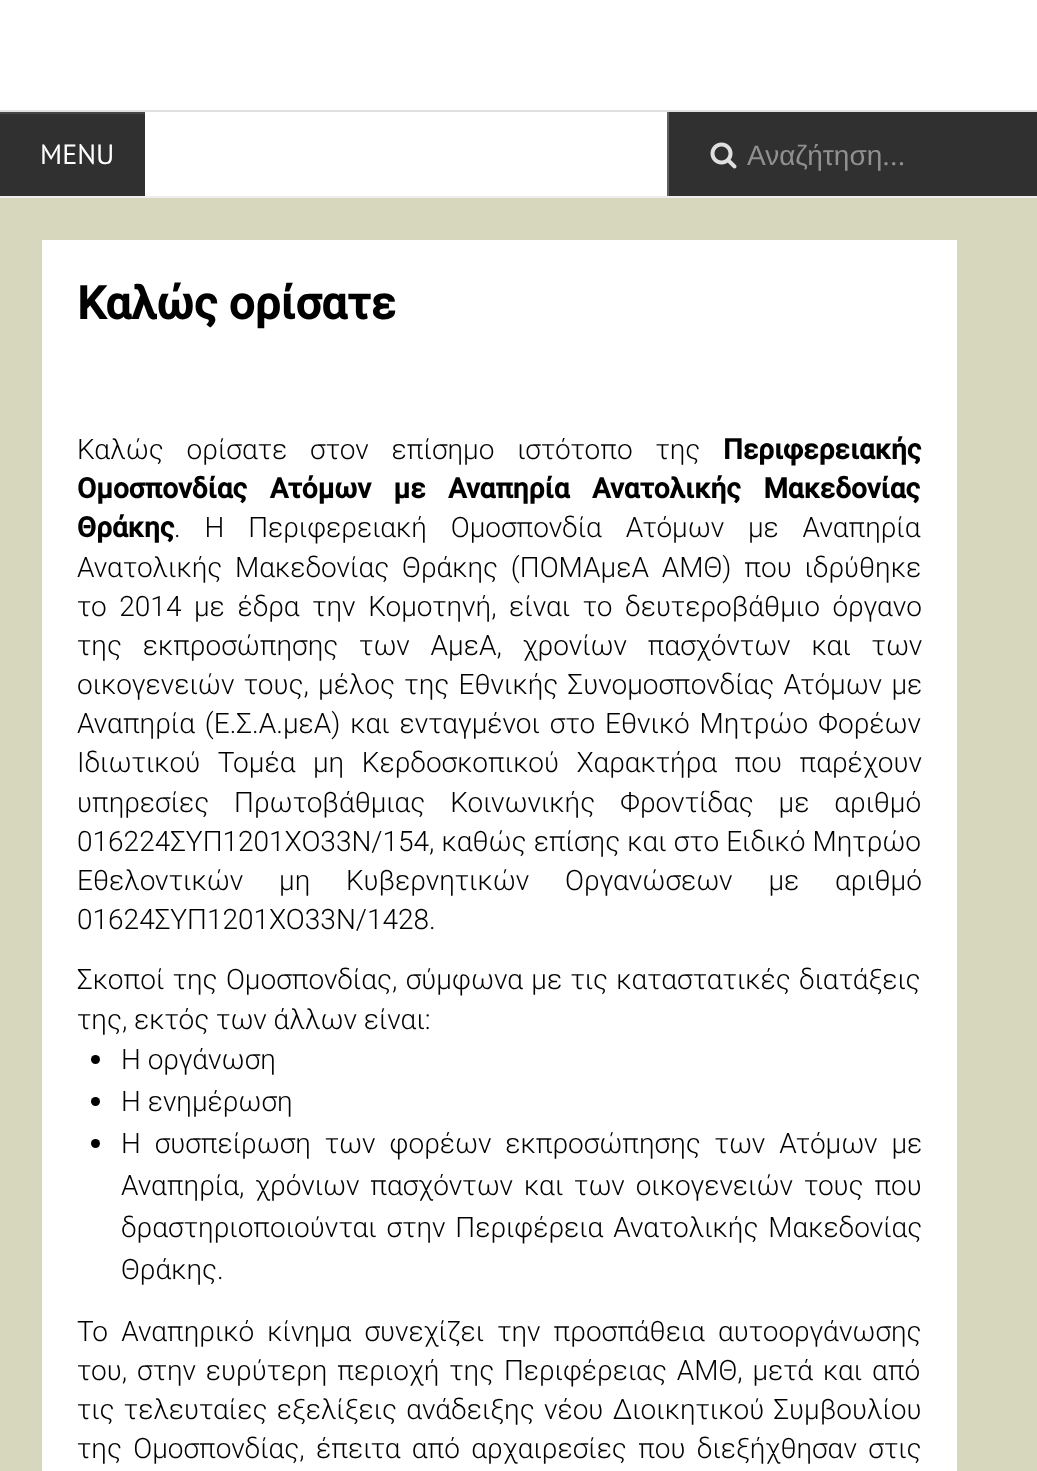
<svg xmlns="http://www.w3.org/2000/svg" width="1037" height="1471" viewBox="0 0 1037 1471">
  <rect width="100%" height="100%" fill="rgb(215,215,190)"/>
  <rect x="0" y="0" width="1037" height="110" fill="rgb(255,255,255)"/>
  <rect x="0" y="110" width="1037" height="2" fill="rgb(224,224,224)"/>
  <rect x="145" y="112" width="522" height="84" fill="rgb(255,255,255)"/>
  <rect x="0" y="196" width="1037" height="2" fill="rgb(238,238,238)"/>
  <rect x="0" y="114" width="145" height="82" fill="rgb(48,48,48)"/>
  <rect x="0" y="112" width="145" height="2" fill="rgb(69,69,69)"/>
  <text x="40" y="164" font-family="PT Sans" font-size="28" fill="rgb(255,255,255)">MENU</text>
  <rect x="669" y="112" width="368" height="84" fill="rgb(48,48,48)"/>
  <rect x="667" y="112" width="2" height="84" fill="rgb(96,96,96)"/>
  <image x="710" y="142" width="27" height="27" href="pic1.png"/>
  <text x="747" y="165" font-family="Liberation Sans" font-size="28" fill="rgb(144,144,144)">Αναζήτηση</text>
  <text x="883" y="165" font-family="PT Sans" font-size="28" fill="rgb(144,144,144)">...</text>
  <rect x="42" y="240" width="915" height="1231" fill="rgb(255,255,255)"/>
  <text x="77" y="319" font-family="Roboto" font-size="45.5" font-weight="bold" fill="rgb(0,0,0)">Καλώς ορίσατε</text>
  <text x="77" y="459" word-spacing="16" font-family="Roboto" font-size="28" font-weight="300" fill="rgb(0,0,0)">Καλώς ορίσατε στον επίσημο ιστότοπο της</text>
  <g font-family="Roboto" font-size="28" font-weight="bold" fill="rgb(0,0,0)">
    <text x="723" y="459">Περιφερειακής</text>
    <text>
      <tspan x="77" y="498" word-spacing="15.5">Ομοσπονδίας Ατόμων με Αναπηρία Ανατολικής Μακεδονίας</tspan>
      <tspan x="77" y="537">Θράκης</tspan>
    </text>
  </g>
  <g font-family="Roboto" font-size="28" font-weight="300" fill="rgb(0,0,0)">
    <text x="174" y="537" word-spacing="17">. Η Περιφερειακή Ομοσπονδία Ατόμων με Αναπηρία</text>
    <text>
      <tspan x="77" y="577" word-spacing="6">Ανατολικής Μακεδονίας Θράκης (ΠΟΜΑμεΑ ΑΜΘ) που ιδρύθηκε</tspan>
      <tspan x="77" y="616" word-spacing="5.75">το 2014 με έδρα την Κομοτηνή, είναι το δευτεροβάθμιο όργανο</tspan>
      <tspan x="77" y="655" word-spacing="14">της εκπροσώπησης των ΑμεΑ, χρονίων πασχόντων και των</tspan>
      <tspan x="77" y="694" word-spacing="2.5">οικογενειών τους, μέλος της Εθνικής Συνομοσπονδίας Ατόμων με</tspan>
      <tspan x="77" y="733" word-spacing="3">Αναπηρία (Ε.Σ.Α.μεΑ) και ενταγμένοι στο Εθνικό Μητρώο Φορέων</tspan>
      <tspan x="77" y="772" word-spacing="10.75">Ιδιωτικού Τομέα μη Κερδοσκοπικού Χαρακτήρα που παρέχουν</tspan>
      <tspan x="77" y="812" word-spacing="18">υπηρεσίες Πρωτοβάθμιας Κοινωνικής Φροντίδας με αριθμό</tspan>
      <tspan x="77" y="851" word-spacing="0.25">016224ΣΥΠ1201ΧΟ33Ν/154, καθώς επίσης και στο Ειδικό Μητρώο</tspan>
      <tspan x="77" y="890" word-spacing="29">Εθελοντικών μη Κυβερνητικών Οργανώσεων με αριθμό</tspan>
      <tspan x="77" y="929">01624ΣΥΠ1201ΧΟ33Ν/1428.</tspan>
    </text>
    <text>
      <tspan x="77" y="989" word-spacing="1.5">Σκοποί της Ομοσπονδίας, σύμφωνα με τις καταστατικές διατάξεις</tspan>
      <tspan x="77" y="1029">της, εκτός των άλλων είναι:</tspan>
    </text>
  </g>
  <circle cx="95.5" cy="1059.5" r="4.5" fill="rgb(0,0,0)"/>
  <text x="121" y="1069" font-family="Roboto" font-size="28" font-weight="300" fill="rgb(0,0,0)">Η οργάνωση</text>
  <circle cx="95.5" cy="1101.5" r="4.5" fill="rgb(0,0,0)"/>
  <text x="121" y="1111" font-family="Roboto" font-size="28" font-weight="300" fill="rgb(0,0,0)">Η ενημέρωση</text>
  <circle cx="95.5" cy="1143.5" r="4.5" fill="rgb(0,0,0)"/>
  <g font-family="Roboto" font-size="28" font-weight="300" fill="rgb(0,0,0)">
    <text>
      <tspan x="121" y="1153" word-spacing="7">Η συσπείρωση των φορέων εκπροσώπησης των Ατόμων με</tspan>
      <tspan x="121" y="1195" word-spacing="4">Αναπηρία, χρόνιων πασχόντων και των οικογενειών τους που</tspan>
      <tspan x="121" y="1237" word-spacing="3">δραστηριοποιούνται στην Περιφέρεια Ανατολικής Μακεδονίας</tspan>
      <tspan x="121" y="1279">Θράκης.</tspan>
    </text>
    <text>
      <tspan x="77" y="1341" word-spacing="6.25">Το Αναπηρικό κίνημα συνεχίζει την προσπάθεια αυτοοργάνωσης</tspan>
      <tspan x="77" y="1380" word-spacing="3">του, στην ευρύτερη περιοχή της Περιφέρειας ΑΜΘ, μετά και από</tspan>
      <tspan x="77" y="1419" word-spacing="2.5">τις τελευταίες εξελίξεις ανάδειξης νέου Διοικητικού Συμβουλίου</tspan>
      <tspan x="77" y="1458" word-spacing="4.5">της Ομοσπονδίας, έπειτα από αρχαιρεσίες που διεξήχθησαν στις</tspan>
    </text>
  </g>
</svg>
